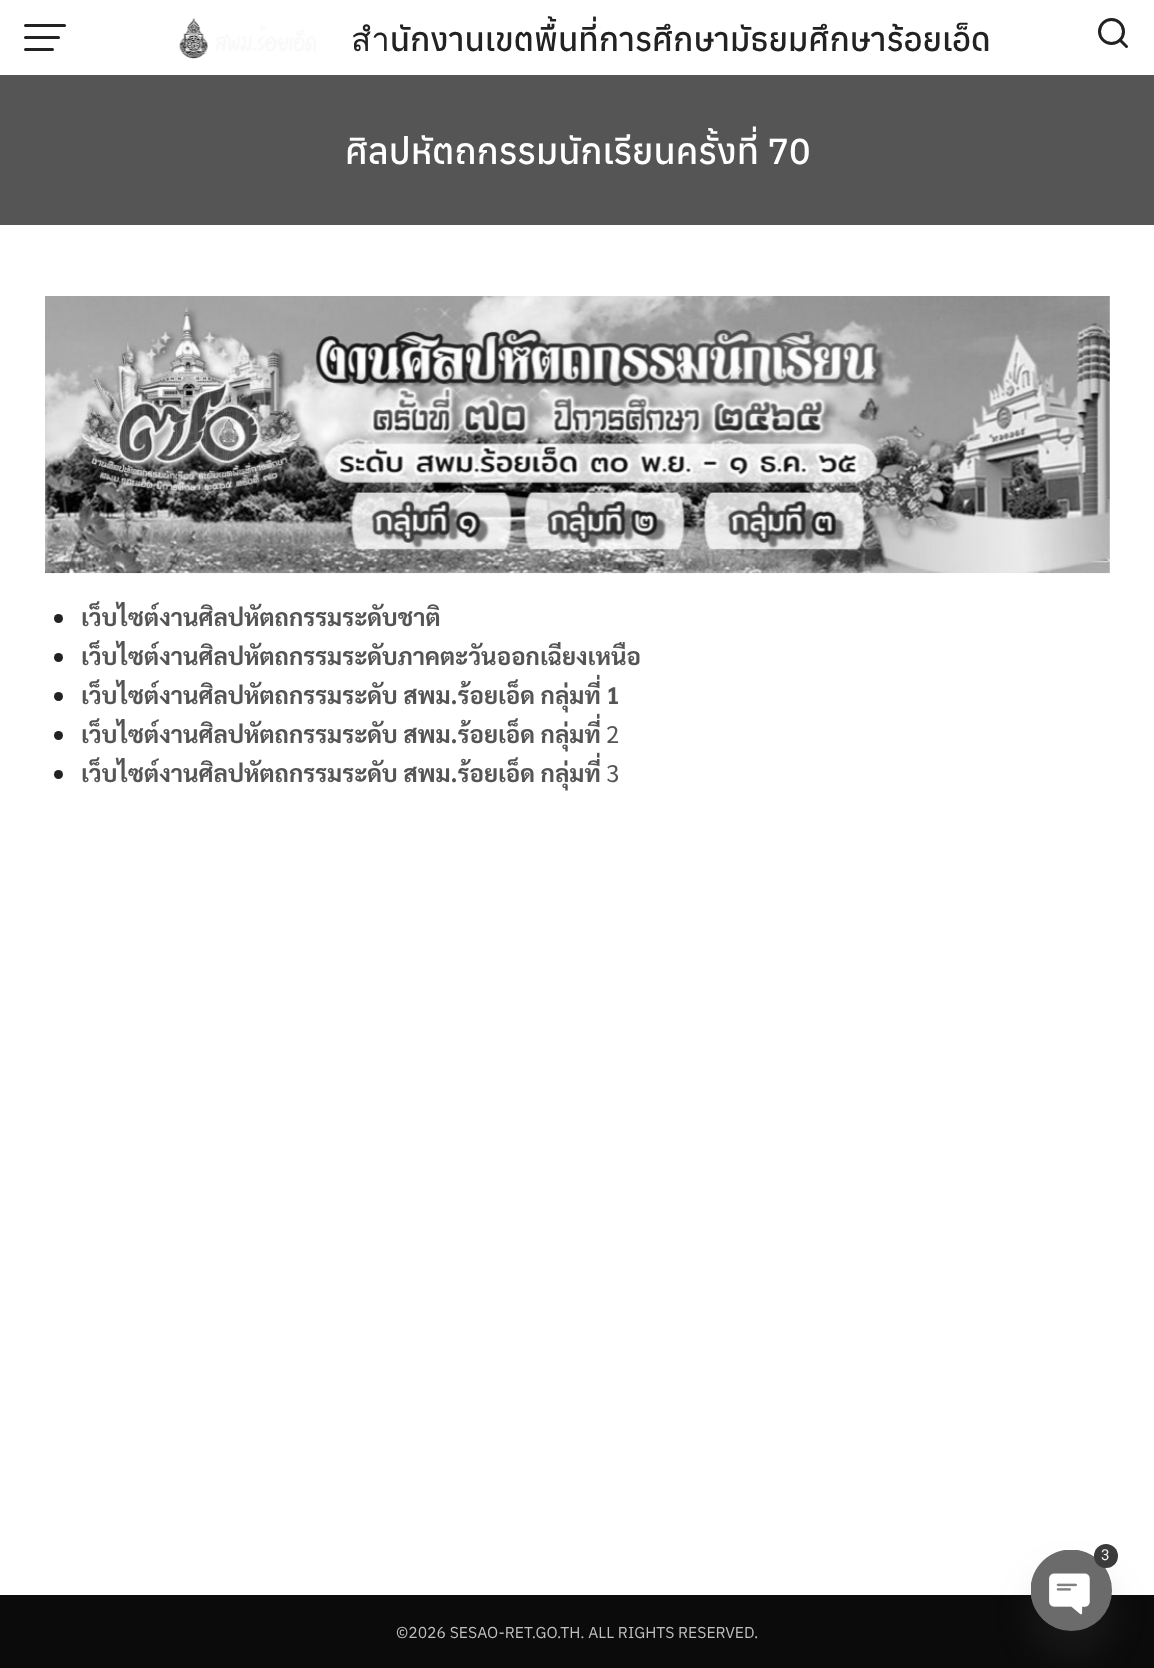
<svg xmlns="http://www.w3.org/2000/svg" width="1154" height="1668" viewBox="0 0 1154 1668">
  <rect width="100%" height="100%" fill="rgb(255,255,255)"/>
  <rect x="24" y="36" width="36" height="3" rx="1.5" fill="rgb(34,34,34)"/>
  <rect x="24" y="24" width="42" height="3" rx="1.5" fill="rgb(34,34,34)"/>
  <rect x="24" y="48" width="30" height="3" rx="1.5" fill="rgb(34,34,34)"/>
  <image x="179" y="18" width="137" height="41" href="pic1.png"/>
  <text x="351" y="51" font-family="Anuphan" font-size="33" font-weight="500" fill="rgb(34,34,34)">สำนักงานเขตพื้นที่การศึกษามัธยมศึกษาร้อยเอ็ด</text>
  <circle cx="1111.5" cy="31.5" r="12" fill="none" stroke="rgb(34,34,34)" stroke-width="3"/>
  <path d="M1126.5 46.5L1120 40" fill="none" stroke="rgb(34,34,34)" stroke-width="3" stroke-linecap="round" stroke-linejoin="round"/>
  <rect x="0" y="75" width="1154" height="150" fill="rgb(85,85,85)"/>
  <text x="345" y="164" font-family="Anuphan" font-size="36" font-weight="500" fill="rgb(255,255,255)">ศิลปหัตถกรรมนักเรียนครั้งที่ 70</text>
  <image x="45" y="296" width="1065" height="278" href="pic2.png"/>
  <circle cx="58.5" cy="618.5" r="4.5" fill="rgb(34,34,34)"/>
  <text x="81" y="626" font-family="Sarabun" font-size="24" font-weight="bold" fill="rgb(85,85,85)">เว็บไซต์งานศิลปหัตถกรรมระดับชาติ</text>
  <circle cx="58.5" cy="657.5" r="4.5" fill="rgb(34,34,34)"/>
  <text x="81" y="665" font-family="Sarabun" font-size="24" font-weight="bold" fill="rgb(85,85,85)">เว็บไซต์งานศิลปหัตถกรรมระดับภาคตะวันออกเฉียงเหนือ</text>
  <circle cx="58.5" cy="696.5" r="4.5" fill="rgb(34,34,34)"/>
  <text x="81" y="704" font-family="Sarabun" font-size="24" font-weight="bold" fill="rgb(85,85,85)">เว็บไซต์งานศิลปหัตถกรรมระดับ สพม.ร้อยเอ็ด กลุ่มที่ 1</text>
  <circle cx="58.5" cy="735.5" r="4.5" fill="rgb(34,34,34)"/>
  <text x="81" y="743" font-family="Sarabun" font-size="24" font-weight="bold" fill="rgb(85,85,85)">เว็บไซต์งานศิลปหัตถกรรมระดับ สพม.ร้อยเอ็ด กลุ่มที่</text>
  <text x="606" y="743" font-family="Sarabun" font-size="24" fill="rgb(85,85,85)">2</text>
  <circle cx="58.5" cy="774.5" r="4.5" fill="rgb(34,34,34)"/>
  <text x="81" y="782" font-family="Sarabun" font-size="24" font-weight="bold" fill="rgb(85,85,85)">เว็บไซต์งานศิลปหัตถกรรมระดับ สพม.ร้อยเอ็ด กลุ่มที่</text>
  <text x="606" y="782" font-family="Sarabun" font-size="24" fill="rgb(85,85,85)">3</text>
  <rect x="0" y="1595" width="1154" height="73" fill="rgb(11,11,11)"/>
  <text x="396" y="1638" font-family="Anuphan" font-size="15.75" fill="rgb(191,191,191)">©2026 SESAO-RET.GO.TH. ALL RIGHTS RESERVED.</text>
  <rect x="1031" y="1574" width="81" height="81" rx="40.5" fill="rgba(99,99,99,0.16)" filter="blur(18px)"/>
  <circle cx="1071.5" cy="1590.5" r="40.5" fill="rgb(107,107,107)"/>
  <image x="1031" y="1550" width="80" height="79" href="pic3.png"/>
  <circle cx="1106" cy="1556" r="12" fill="rgb(59,59,59)"/>
  <text x="1101" y="1560" font-family="Roboto" font-size="15" fill="rgb(241,241,241)">3</text>
</svg>
